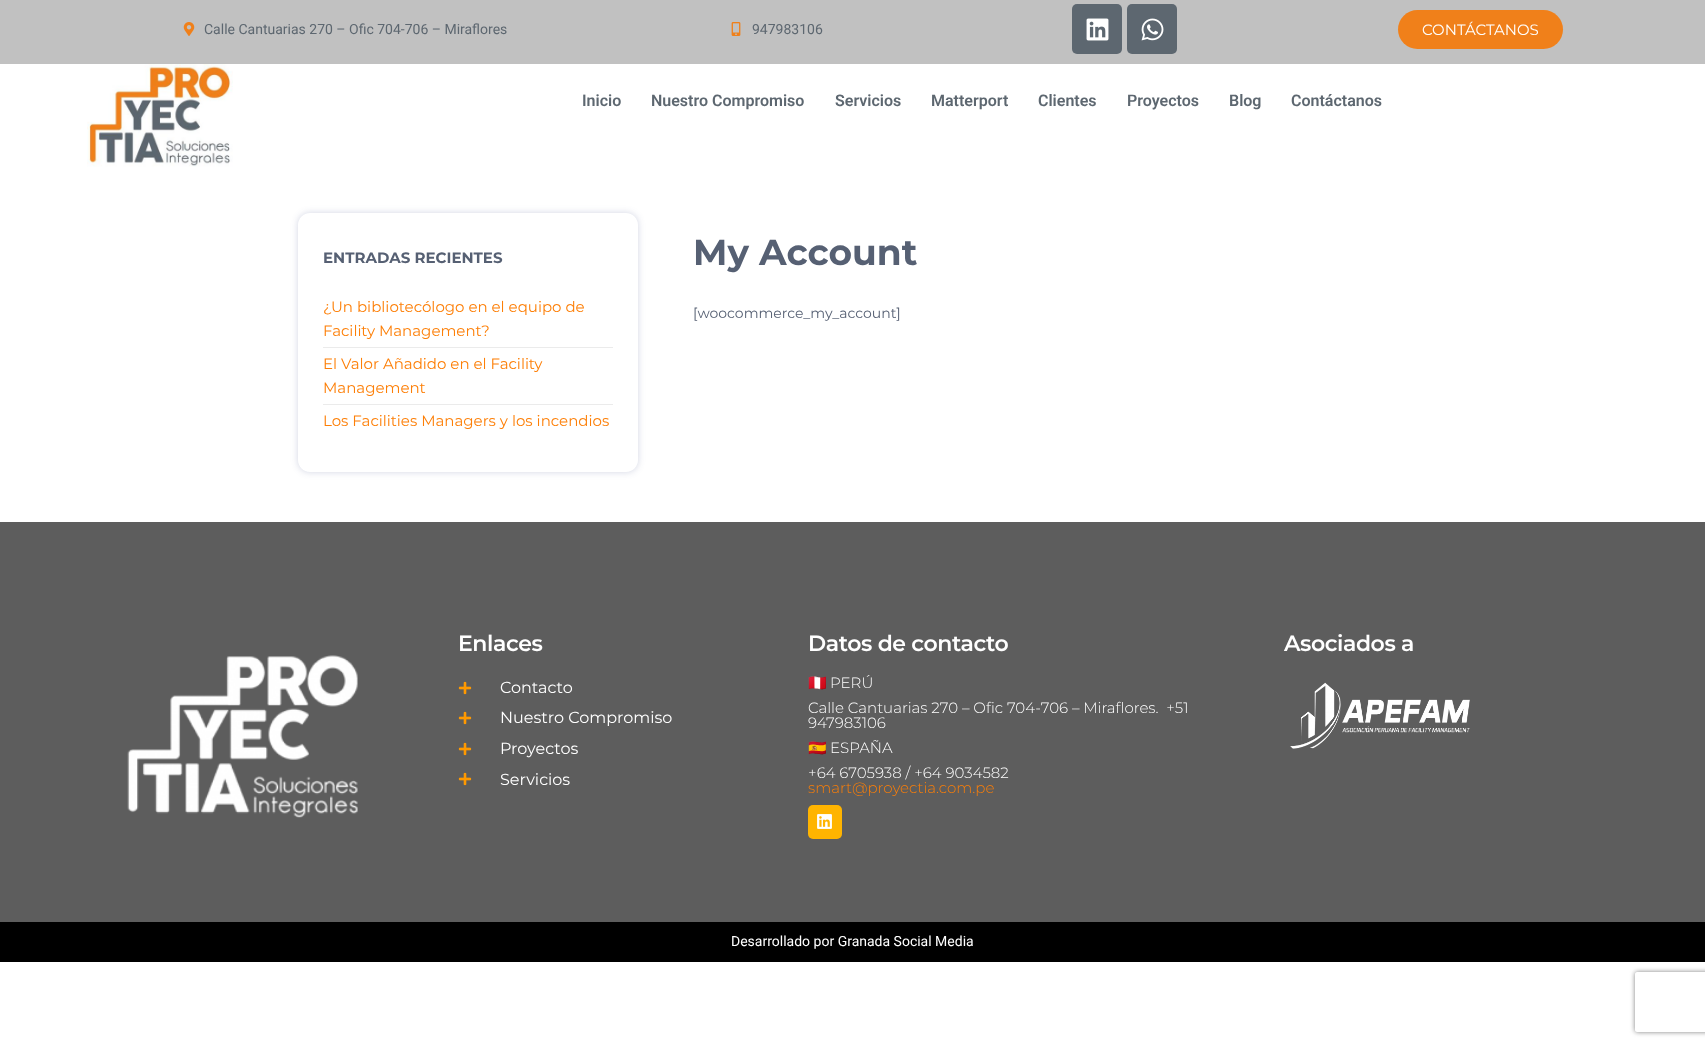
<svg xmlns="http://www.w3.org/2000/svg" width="1705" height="1046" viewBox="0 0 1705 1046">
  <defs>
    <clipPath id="clip1"><path d="M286 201H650V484H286ZM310 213H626C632.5 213 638 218.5 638 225V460C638 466.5 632.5 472 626 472H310C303.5 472 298 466.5 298 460V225C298 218.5 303.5 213 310 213Z" clip-rule="evenodd"/></clipPath>
    <clipPath id="clip2"><path d="M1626 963H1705V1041H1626ZM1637 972H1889C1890 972 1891 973 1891 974V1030C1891 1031 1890 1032 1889 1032H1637C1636 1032 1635 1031 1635 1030V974C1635 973 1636 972 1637 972Z" clip-rule="evenodd"/></clipPath>
  </defs>
  <rect width="100%" height="100%" fill="rgb(255,255,255)"/>
  <rect x="0" y="0" width="1705" height="64" fill="rgb(193,193,193)"/>
  <image x="183" y="22" width="12" height="14" href="pic1.png"/>
  <text x="204" y="34" font-family="Roboto" font-size="14" fill="rgb(93,103,112)">Calle Cantuarias 270 – Ofic 704-706 – Miraflores</text>
  <image x="731" y="22" width="10" height="14" href="pic2.png"/>
  <text x="752" y="34" font-family="Roboto" font-size="14" fill="rgb(93,103,112)">947983106</text>
  <rect x="1072" y="4" width="50" height="50" rx="5" fill="rgb(93,103,112)"/>
  <image x="1086" y="18" width="23" height="23" href="pic3.png"/>
  <rect x="1127" y="4" width="50" height="50" rx="5" fill="rgb(93,103,112)"/>
  <image x="1141" y="18" width="23" height="23" href="pic4.png"/>
  <rect x="1398" y="10" width="165" height="39" rx="19.5" fill="rgb(240,128,26)"/>
  <text x="1422" y="35" font-family="Montserrat" font-size="15" fill="rgb(255,255,255)">CONTÁCTANOS</text>
  <image x="87" y="64" width="146" height="103" href="pic5.png"/>
  <g font-family="Roboto" font-size="16" font-weight="600" fill="rgb(93,103,112)">
    <text x="582" y="106">Inicio</text>
    <text x="651" y="106">Nuestro Compromiso</text>
    <text x="835" y="106">Servicios</text>
    <text x="931" y="106">Matterport</text>
    <text x="1038" y="106">Clientes</text>
    <text x="1127" y="106">Proyectos</text>
    <text x="1229" y="106">Blog</text>
    <text x="1291" y="106">Contáctanos</text>
  </g>
  <g clip-path="url(#clip1)">
    <rect x="298" y="213" width="340" height="259" rx="12" fill="rgba(28,45,113,0.2)" filter="blur(3.5px)"/>
  </g>
  <text x="323" y="263" font-family="Montserrat" font-size="15" font-weight="bold" fill="rgb(86,96,115)">ENTRADAS RECIENTES</text>
  <rect x="323" y="347" width="290" height="1" fill="rgb(235,235,235)"/>
  <g font-family="Montserrat" font-size="15" fill="rgb(253,127,7)">
    <text>
      <tspan x="323" y="312">¿Un bibliotecólogo en el equipo de</tspan>
      <tspan x="323" y="336">Facility Management?</tspan>
    </text>
  </g>
  <rect x="323" y="404" width="290" height="1" fill="rgb(235,235,235)"/>
  <g font-family="Montserrat" font-size="15" fill="rgb(253,127,7)">
    <text>
      <tspan x="323" y="369">El Valor Añadido en el Facility</tspan>
      <tspan x="323" y="393">Management</tspan>
    </text>
    <text x="323" y="426">Los Facilities Managers y los incendios</text>
  </g>
  <text x="693" y="265" font-family="Montserrat" font-size="36" font-weight="bold" fill="rgb(86,96,115)">My Account</text>
  <text x="693" y="318" font-family="Montserrat" font-size="14" fill="rgb(86,96,115)">[woocommerce_my_account]</text>
  <rect x="0" y="522" width="1705" height="400" fill="rgb(93,93,93)"/>
  <text x="458" y="651" font-family="Montserrat" font-size="22" font-weight="600" letter-spacing="-0.4" fill="rgb(255,255,255)">Enlaces</text>
  <image x="458" y="681" width="14" height="14" href="pic6.png"/>
  <text x="500" y="693" font-family="Montserrat" font-size="16" fill="rgb(255,255,255)">Contacto</text>
  <image x="458" y="711" width="14" height="14" href="pic6.png"/>
  <text x="500" y="723" font-family="Montserrat" font-size="16" fill="rgb(255,255,255)">Nuestro Compromiso</text>
  <image x="458" y="742" width="14" height="14" href="pic6.png"/>
  <text x="500" y="754" font-family="Montserrat" font-size="16" fill="rgb(255,255,255)">Proyectos</text>
  <image x="458" y="772" width="14" height="14" href="pic6.png"/>
  <text x="500" y="785" font-family="Montserrat" font-size="16" fill="rgb(255,255,255)">Servicios</text>
  <text x="808" y="651" font-family="Montserrat" font-size="22" font-weight="600" letter-spacing="-0.4" fill="rgb(255,255,255)">Datos de contacto</text>
  <text x="808" y="688" font-family="Noto Color Emoji" font-size="15" fill="rgb(255,255,255)">🇵🇪</text>
  <g font-family="Montserrat" font-size="15" font-weight="300" fill="rgb(255,255,255)">
    <text x="830" y="688">PERÚ</text>
    <text xml:space="preserve"><tspan x="808" y="713">Calle Cantuarias 270 – Ofic 704-706 – Miraflores.  +51</tspan><tspan x="808" y="728">947983106</tspan></text>
  </g>
  <text x="808" y="753" font-family="Noto Color Emoji" font-size="15" fill="rgb(255,255,255)">🇪🇸</text>
  <g font-family="Montserrat" font-size="15" font-weight="300" fill="rgb(255,255,255)">
    <text x="830" y="753">ESPAÑA</text>
    <text x="808" y="778">+64 6705938 / +64 9034582</text>
  </g>
  <text x="808" y="793" font-family="Montserrat" font-size="15" font-weight="300" fill="rgb(253,127,7)">smart@proyectia.com.pe</text>
  <rect x="808" y="805" width="34" height="34" rx="5" fill="rgb(255,180,0)"/>
  <image x="817" y="814" width="15" height="15" href="pic7.png"/>
  <text x="1284" y="651" font-family="Montserrat" font-size="22" font-weight="600" letter-spacing="-0.4" fill="rgb(255,255,255)">Asociados a</text>
  <image x="1290" y="682" width="180" height="67" href="pic8.png"/>
  <image x="127" y="655" width="231" height="163" href="pic9.png"/>
  <rect x="0" y="922" width="1705" height="40" fill="rgb(0,0,0)"/>
  <text x="731" y="946" font-family="Roboto" font-size="14" fill="rgb(255,255,255)">Desarrollado por Granada Social Media</text>
  <g clip-path="url(#clip2)">
    <rect x="1635" y="972" width="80" height="60" rx="2" fill="rgb(128,128,128)" filter="blur(2.5px)"/>
  </g>
</svg>
